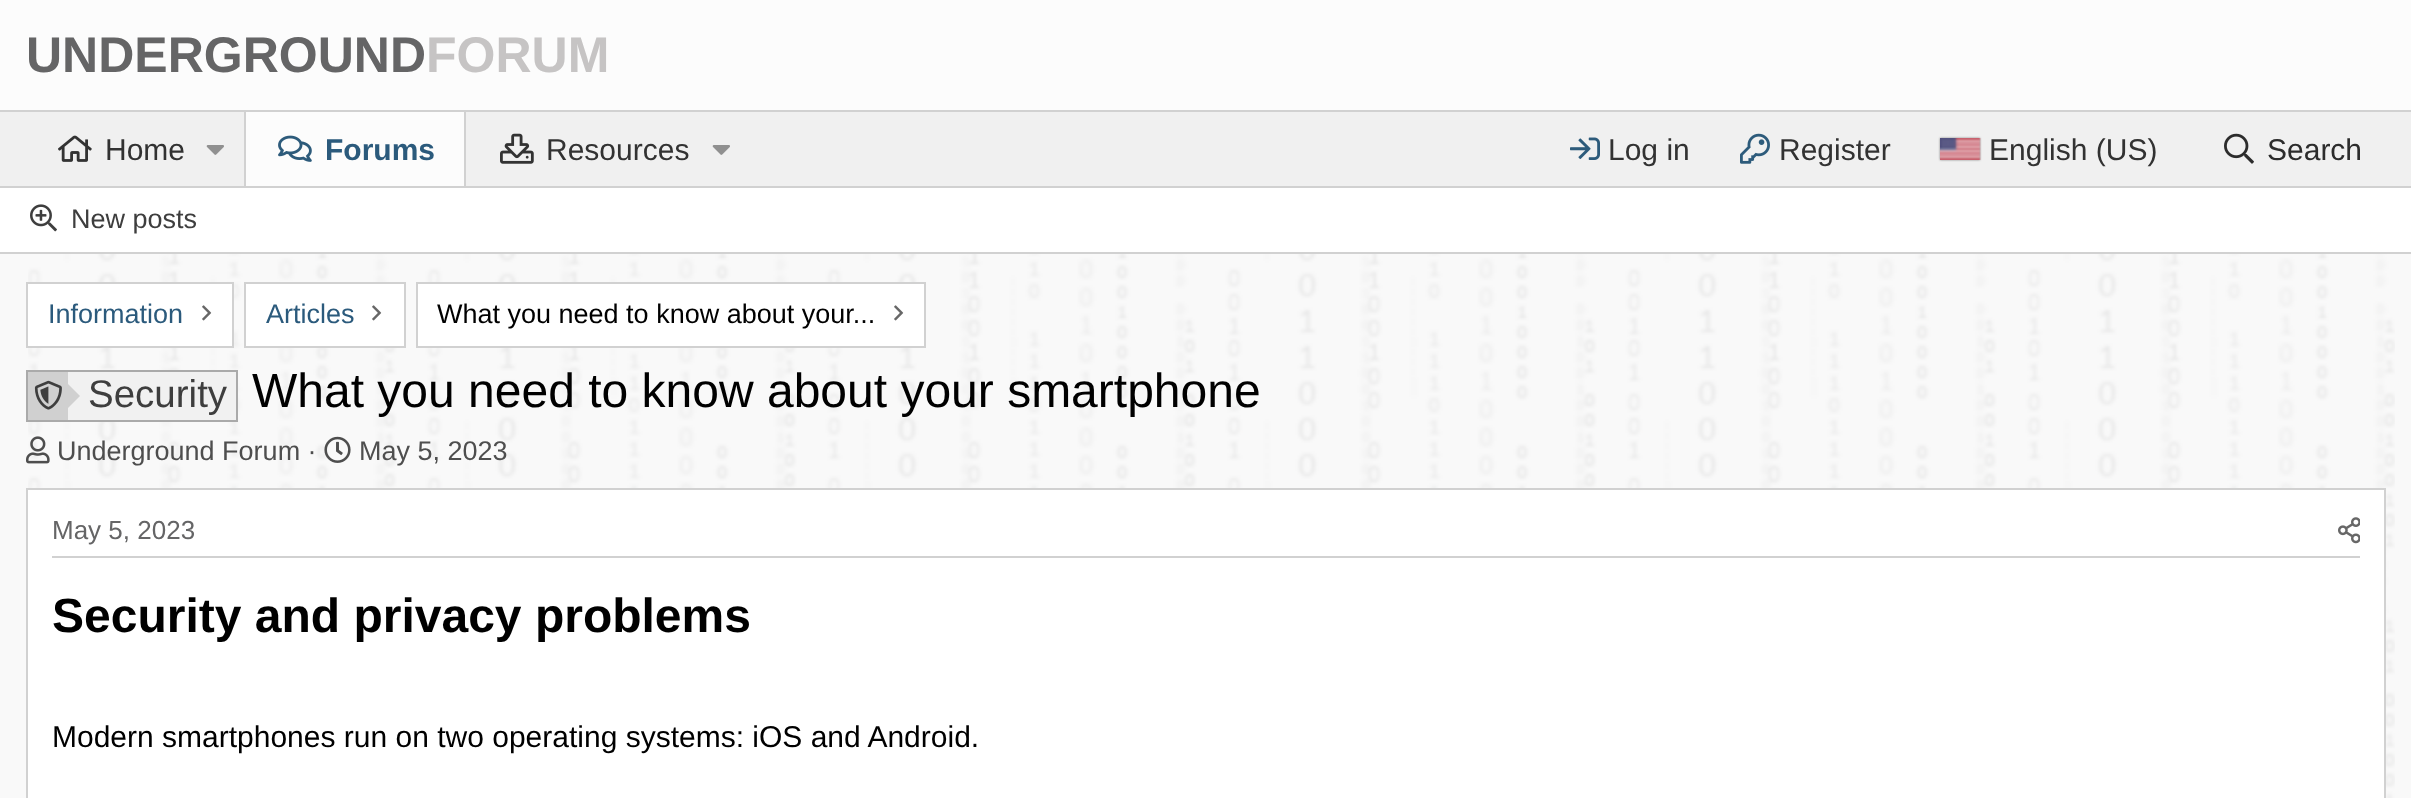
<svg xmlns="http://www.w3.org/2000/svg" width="2411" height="798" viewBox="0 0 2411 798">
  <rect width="100%" height="100%" fill="rgb(249,249,249)"/>
  <image x="28" y="254" width="2367" height="544" href="pic1.png"/>
  <rect x="0" y="0" width="2411" height="110" fill="rgb(252,252,252)"/>
  <rect x="0" y="110" width="2411" height="2" fill="rgb(209,209,209)"/>
  <text x="26" y="72" font-family="Liberation Sans" font-size="50" font-weight="bold" fill="rgb(101,101,102)">UNDERGROUND</text>
  <text x="426" y="72" font-family="Liberation Sans" font-size="50" font-weight="bold" fill="rgb(198,196,196)">FORUM</text>
  <rect x="0" y="112" width="2411" height="74" fill="rgb(240,240,240)"/>
  <rect x="0" y="186" width="2411" height="2" fill="rgb(209,209,209)"/>
  <image x="58" y="135" width="34" height="27" href="pic2.png"/>
  <text x="105" y="160" font-family="Liberation Sans" font-size="30" fill="rgb(50,50,50)">Home</text>
  <image x="206" y="145" width="18" height="10" href="pic3.png"/>
  <rect x="246" y="112" width="218" height="74" fill="rgb(252,252,252)"/>
  <rect x="464" y="112" width="2" height="74" fill="rgb(209,209,209)"/>
  <rect x="244" y="112" width="2" height="74" fill="rgb(209,209,209)"/>
  <image x="278" y="135" width="34" height="27" href="pic4.png"/>
  <text x="325" y="160" font-family="Liberation Sans" font-size="30" font-weight="bold" fill="rgb(43,90,124)">Forums</text>
  <image x="500" y="133" width="34" height="31" href="pic5.png"/>
  <text x="546" y="160" font-family="Liberation Sans" font-size="30" fill="rgb(50,50,50)">Resources</text>
  <image x="712" y="145" width="18" height="10" href="pic3.png"/>
  <image x="1570" y="137" width="30" height="23" href="pic6.png"/>
  <text x="1608" y="160" font-family="Liberation Sans" font-size="30" fill="rgb(50,50,50)">Log in</text>
  <image x="1740" y="133" width="30" height="31" href="pic7.png"/>
  <text x="1779" y="160" font-family="Liberation Sans" font-size="30" fill="rgb(50,50,50)">Register</text>
  <rect x="1940" y="138" width="40" height="22" fill="rgb(136,136,136)" filter="blur(1px)"/>
  <image x="1940" y="138" width="41" height="22" href="pic8.png"/>
  <text x="1989" y="160" font-family="Liberation Sans" font-size="30" fill="rgb(50,50,50)">English (US)</text>
  <image x="2224" y="133" width="30" height="31" href="pic9.png"/>
  <text x="2267" y="160" font-family="Liberation Sans" font-size="30" fill="rgb(44,44,44)">Search</text>
  <rect x="0" y="188" width="2411" height="64" fill="rgb(255,255,255)"/>
  <rect x="0" y="252" width="2411" height="2" fill="rgb(209,209,209)"/>
  <image x="30" y="204" width="27" height="28" href="pic10.png"/>
  <text x="71" y="228" font-family="Liberation Sans" font-size="27" fill="rgb(62,62,62)">New posts</text>
  <rect x="27" y="283" width="206" height="64" fill="rgb(255,255,255)" stroke="rgb(209,209,209)" stroke-width="2"/>
  <text x="48" y="323" font-family="Liberation Sans" font-size="27" fill="rgb(43,90,124)">Information</text>
  <image x="202" y="305" width="10" height="16" href="pic11.png"/>
  <rect x="245" y="283" width="160" height="64" fill="rgb(255,255,255)" stroke="rgb(209,209,209)" stroke-width="2"/>
  <text x="266" y="323" font-family="Liberation Sans" font-size="27" fill="rgb(43,90,124)">Articles</text>
  <image x="372" y="305" width="10" height="16" href="pic11.png"/>
  <rect x="417" y="283" width="508" height="64" fill="rgb(255,255,255)" stroke="rgb(209,209,209)" stroke-width="2"/>
  <text x="437" y="323" font-family="Liberation Sans" font-size="27" fill="rgb(0,0,0)">What you need to know about your...</text>
  <image x="894" y="305" width="10" height="16" href="pic11.png"/>
  <rect x="68" y="372" width="168" height="48" fill="rgb(241,241,241)"/>
  <rect x="27" y="371" width="210" height="50" fill="none" stroke="rgb(170,170,170)" stroke-width="2"/>
  <rect x="28" y="372" width="40" height="48" fill="rgb(208,208,208)"/>
  <image x="34" y="380" width="28" height="30" href="pic12.png"/>
  <path d="M68 408V384L80 396Z" fill="rgb(208,208,208)"/>
  <text x="88" y="407" font-family="Liberation Sans" font-size="38.5" fill="rgb(62,62,62)">Security</text>
  <text x="252" y="407" font-family="Liberation Sans" font-size="48" fill="rgb(0,0,0)">What you need to know about your smartphone</text>
  <image x="26" y="436" width="24" height="28" href="pic13.png"/>
  <text x="57" y="460" font-family="Liberation Sans" font-size="27" fill="rgb(78,78,78)">Underground Forum ·</text>
  <image x="324" y="436" width="27" height="27" href="pic14.png"/>
  <text x="359" y="460" font-family="Liberation Sans" font-size="27" fill="rgb(78,78,78)">May 5, 2023</text>
  <rect x="27" y="489" width="2358" height="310" fill="rgb(255,255,255)" stroke="rgb(209,209,209)" stroke-width="2"/>
  <rect x="52" y="556" width="2308" height="2" fill="rgb(209,209,209)"/>
  <text x="52" y="539" font-family="Liberation Sans" font-size="26" fill="rgb(101,101,102)">May 5, 2023</text>
  <image x="2338" y="517" width="22" height="27" href="pic15.png"/>
  <text x="52" y="632" font-family="Liberation Sans" font-size="48" font-weight="bold" fill="rgb(0,0,0)">Security and privacy problems</text>
  <text x="52" y="747" font-family="Liberation Sans" font-size="30" fill="rgb(0,0,0)">Modern smartphones run on two operating systems: iOS and Android.</text>
</svg>
